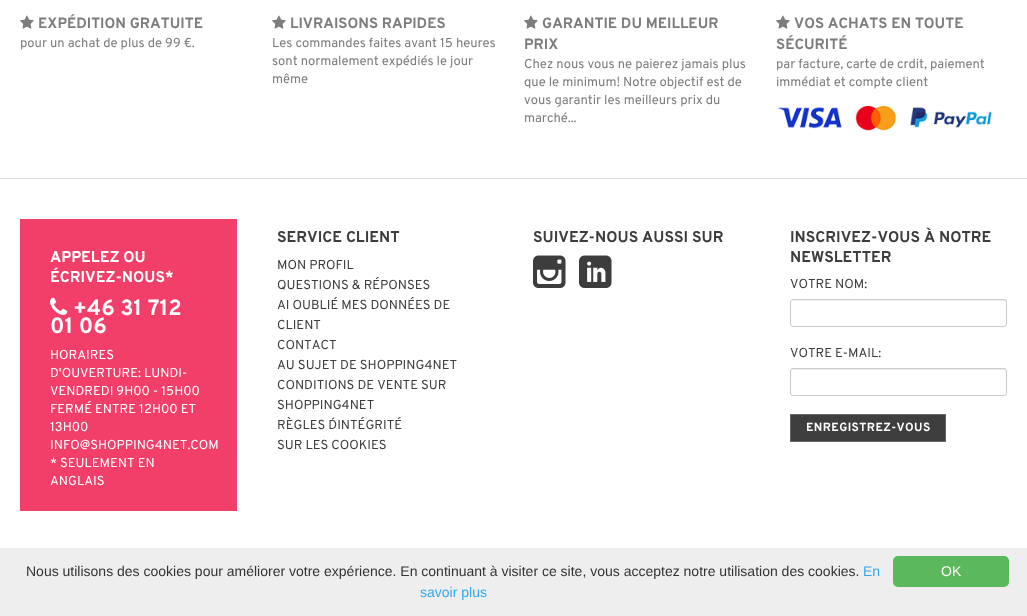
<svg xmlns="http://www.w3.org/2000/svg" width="1027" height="616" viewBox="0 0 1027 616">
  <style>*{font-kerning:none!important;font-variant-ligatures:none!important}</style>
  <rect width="100%" height="100%" fill="rgb(255,255,255)"/>
  <rect x="0" y="178" width="1027" height="1" fill="rgb(219,219,219)"/>
  <image x="20" y="15" width="14" height="14" href="pic1.png"/>
  <text x="38" y="28" font-family="Overpass" font-size="14.9" font-weight="bold" fill="rgb(125,125,125)">EXPÉDITION GRATUITE</text>
  <text x="20" y="47" font-family="Overpass" font-size="13" fill="rgb(125,125,125)">pour un achat de plus de 99 €.</text>
  <image x="272" y="15" width="14" height="14" href="pic1.png"/>
  <text x="290" y="28" font-family="Overpass" font-size="14.9" font-weight="bold" fill="rgb(125,125,125)">LIVRAISONS RAPIDES</text>
  <g font-family="Overpass" font-size="13" fill="rgb(125,125,125)">
    <text>
      <tspan x="272" y="47">Les commandes faites avant 15 heures</tspan>
      <tspan x="272" y="65">sont normalement expédiés le jour</tspan>
      <tspan x="272" y="83">même</tspan>
    </text>
  </g>
  <image x="524" y="15" width="14" height="14" href="pic1.png"/>
  <g font-family="Overpass" font-size="14.9" font-weight="bold" fill="rgb(125,125,125)">
    <text x="542" y="28">GARANTIE DU MEILLEUR</text>
    <text x="524" y="49">PRIX</text>
  </g>
  <g font-family="Overpass" font-size="13" fill="rgb(125,125,125)">
    <text>
      <tspan x="524" y="68">Chez nous vous ne paierez jamais plus</tspan>
      <tspan x="524" y="86">que le minimum! Notre objectif est de</tspan>
      <tspan x="524" y="104">vous garantir les meilleurs prix du</tspan>
      <tspan x="524" y="122">marché...</tspan>
    </text>
  </g>
  <image x="776" y="15" width="14" height="14" href="pic1.png"/>
  <g font-family="Overpass" font-size="14.9" font-weight="bold" fill="rgb(125,125,125)">
    <text x="794" y="28">VOS ACHATS EN TOUTE</text>
    <text x="776" y="49">SÉCURITÉ</text>
  </g>
  <g font-family="Overpass" font-size="13" fill="rgb(125,125,125)">
    <text>
      <tspan x="776" y="68">par facture, carte de crdit, paiement</tspan>
      <tspan x="776" y="86">immédiat et compte client</tspan>
    </text>
  </g>
  <image x="777" y="106" width="215" height="25" href="pic2.png"/>
  <text x="277" y="242" font-family="Overpass" font-size="15.6" font-weight="bold" fill="rgb(61,61,61)">SERVICE CLIENT</text>
  <g font-family="Overpass" font-size="13" fill="rgb(61,61,61)">
    <text>
      <tspan x="277" y="269">MON PROFIL</tspan>
      <tspan x="277" y="289">QUESTIONS &amp; RÉPONSES</tspan>
      <tspan x="277" y="309">AI OUBLIÉ MES DONNÉES DE</tspan>
      <tspan x="277" y="329">CLIENT</tspan>
      <tspan x="277" y="349">CONTACT</tspan>
      <tspan x="277" y="369">AU SUJET DE SHOPPING4NET</tspan>
      <tspan x="277" y="389">CONDITIONS DE VENTE SUR</tspan>
      <tspan x="277" y="409">SHOPPING4NET</tspan>
      <tspan x="277" y="429">RÈGLES D´INTÉGRITÉ</tspan>
      <tspan x="277" y="449">SUR LES COOKIES</tspan>
    </text>
  </g>
  <text x="533" y="242" font-family="Overpass" font-size="15.6" font-weight="bold" fill="rgb(61,61,61)">SUIVEZ-NOUS AUSSI SUR</text>
  <image x="533" y="255" width="33" height="33" href="pic3.png"/>
  <image x="579" y="255" width="33" height="33" href="pic4.png"/>
  <g font-family="Overpass" font-size="15.6" font-weight="bold" fill="rgb(61,61,61)">
    <text>
      <tspan x="790" y="242">INSCRIVEZ-VOUS À NOTRE</tspan>
      <tspan x="790" y="262">NEWSLETTER</tspan>
    </text>
  </g>
  <text x="790" y="288" font-family="Overpass" font-size="13" fill="rgb(61,61,61)">VOTRE NOM:</text>
  <path d="M793 301H1004C1005 301 1006 302 1006 303C1006 302 1006 300 1004 300H793L792 301L791 303C791 302 792 301 793 301Z" fill="rgb(236,236,236)"/>
  <rect x="790.5" y="299.5" width="216" height="27" rx="2.5" fill="none" stroke="rgb(204,204,204)"/>
  <text x="790" y="357" font-family="Overpass" font-size="13" fill="rgb(61,61,61)">VOTRE E-MAIL:</text>
  <path d="M793 370H1004C1005 370 1006 371 1006 372C1006 371 1006 369 1004 369H793L792 370L791 372C791 371 792 370 793 370Z" fill="rgb(236,236,236)"/>
  <rect x="790.5" y="368.5" width="216" height="27" rx="2.5" fill="none" stroke="rgb(204,204,204)"/>
  <rect x="790.5" y="414.5" width="155" height="27" fill="rgb(62,62,62)" stroke="rgb(102,102,102)"/>
  <text x="806" y="431" font-family="Overpass" font-size="11.9" font-weight="bold" letter-spacing="0.4" fill="rgb(255,255,255)">ENREGISTREZ-VOUS</text>
  <rect x="20" y="219" width="217" height="292" fill="rgb(241,63,106)"/>
  <g font-family="Overpass" font-size="15.6" font-weight="bold" fill="rgb(255,255,255)">
    <text>
      <tspan x="50" y="262">APPELEZ OU</tspan>
      <tspan x="50" y="282">ÉCRIVEZ-NOUS*</tspan>
    </text>
  </g>
  <image x="50" y="297" width="18" height="18" href="pic5.png"/>
  <g font-family="Overpass" font-size="22" font-weight="bold" fill="rgb(255,255,255)">
    <text x="73" y="315">+46 31 712</text>
    <text x="50" y="333">01 06</text>
  </g>
  <g font-family="Overpass" font-size="13" fill="rgb(255,255,255)">
    <text>
      <tspan x="50" y="359">HORAIRES</tspan>
      <tspan x="50" y="377">D'OUVERTURE: LUNDI-</tspan>
      <tspan x="50" y="395">VENDREDI 9H00 - 15H00</tspan>
      <tspan x="50" y="413">FERMÉ ENTRE 12H00 ET</tspan>
      <tspan x="50" y="431">13H00</tspan>
      <tspan x="50" y="449">INFO@SHOPPING4NET.COM</tspan>
      <tspan x="50" y="467">* SEULEMENT EN</tspan>
      <tspan x="50" y="485">ANGLAIS</tspan>
    </text>
  </g>
  <rect x="0" y="548" width="1027" height="68" fill="rgb(238,238,238)"/>
  <text x="26" y="576" font-family="Liberation Sans" font-size="14" fill="rgb(51,51,51)">Nous utilisons des cookies pour améliorer votre expérience. En continuant à visiter ce site, vous acceptez notre utilisation des cookies.</text>
  <g font-family="Liberation Sans" font-size="14" fill="rgb(49,168,240)">
    <text x="863" y="576">En</text>
    <text x="420" y="597">savoir plus</text>
  </g>
  <rect x="893" y="556" width="116" height="31" rx="5" fill="rgb(92,184,92)"/>
  <text x="941" y="576" font-family="Liberation Sans" font-size="14" fill="rgb(255,255,255)">OK</text>
</svg>
